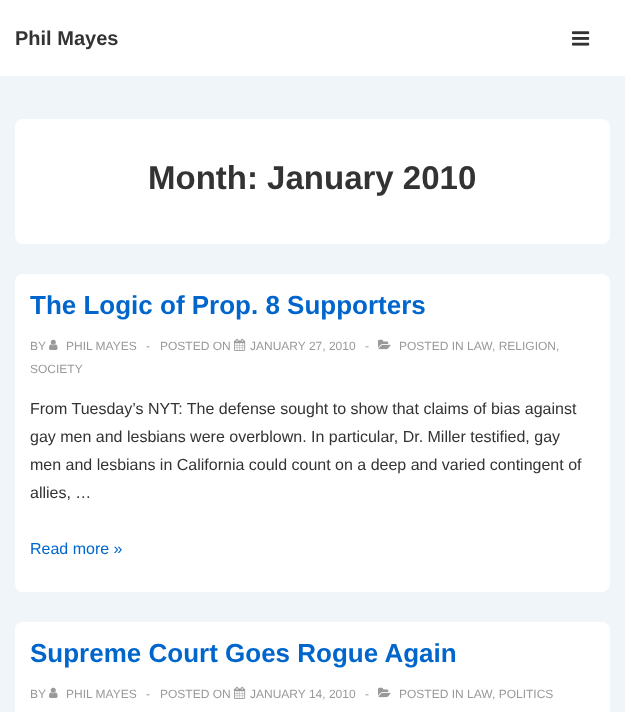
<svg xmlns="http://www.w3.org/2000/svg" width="625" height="712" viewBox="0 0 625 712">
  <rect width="100%" height="100%" fill="rgb(240,245,250)"/>
  <rect x="0" y="0" width="625" height="76" fill="rgb(255,255,255)"/>
  <text x="15" y="45" font-family="Liberation Sans" font-size="20" font-weight="bold" fill="rgb(51,51,51)">Phil Mayes</text>
  <image x="572" y="31" width="18" height="15" href="pic1.png"/>
  <rect x="15" y="119" width="595" height="125" rx="8" fill="rgb(255,255,255)"/>
  <text x="148" y="189" font-family="Liberation Sans" font-size="33" font-weight="bold" fill="rgb(51,51,51)">Month: January 2010</text>
  <rect x="15" y="274" width="595" height="318" rx="8" fill="rgb(255,255,255)"/>
  <text x="30" y="314" font-family="Liberation Sans" font-size="26" font-weight="bold" fill="rgb(0,102,204)">The Logic of Prop. 8 Supporters</text>
  <text x="30" y="350" font-family="Liberation Sans" font-size="12" fill="rgb(153,153,153)">BY</text>
  <image x="49" y="339" width="9" height="11" href="pic2.png"/>
  <g font-family="Liberation Sans" font-size="12" fill="rgb(153,153,153)">
    <text x="66" y="350">PHIL MAYES</text>
    <text x="146" y="350">-</text>
    <text x="160" y="350">POSTED ON</text>
  </g>
  <image x="234" y="338" width="12" height="13" href="pic3.png"/>
  <g font-family="Liberation Sans" font-size="12" fill="rgb(153,153,153)">
    <text x="250" y="350">JANUARY 27, 2010</text>
    <text x="365" y="350">-</text>
  </g>
  <image x="378" y="339" width="13" height="11" href="pic4.png"/>
  <g font-family="Liberation Sans" font-size="12" fill="rgb(153,153,153)">
    <text x="399" y="350">POSTED IN LAW</text>
    <text x="492" y="350">, RELIGION,</text>
    <text x="30" y="373">SOCIETY</text>
  </g>
  <g font-family="Liberation Sans" font-size="16" fill="rgb(51,51,51)">
    <text>
      <tspan x="30" y="414">From Tuesday’s NYT: The defense sought to show that claims of bias against</tspan>
      <tspan x="30" y="442">gay men and lesbians were overblown. In particular, Dr. Miller testified, gay</tspan>
      <tspan x="30" y="470">men and lesbians in California could count on a deep and varied contingent of</tspan>
      <tspan x="30" y="498">allies, …</tspan>
    </text>
  </g>
  <text x="30" y="554" font-family="Liberation Sans" font-size="16" fill="rgb(0,102,204)">Read more »</text>
  <rect x="15" y="622" width="595" height="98" rx="8" fill="rgb(255,255,255)"/>
  <text x="30" y="662" font-family="Liberation Sans" font-size="26" font-weight="bold" fill="rgb(0,102,204)">Supreme Court Goes Rogue Again</text>
  <text x="30" y="698" font-family="Liberation Sans" font-size="12" fill="rgb(153,153,153)">BY</text>
  <image x="49" y="687" width="9" height="11" href="pic2.png"/>
  <g font-family="Liberation Sans" font-size="12" fill="rgb(153,153,153)">
    <text x="66" y="698">PHIL MAYES</text>
    <text x="146" y="698">-</text>
    <text x="160" y="698">POSTED ON</text>
  </g>
  <image x="234" y="686" width="12" height="13" href="pic3.png"/>
  <g font-family="Liberation Sans" font-size="12" fill="rgb(153,153,153)">
    <text x="250" y="698">JANUARY 14, 2010</text>
    <text x="365" y="698">-</text>
  </g>
  <image x="378" y="687" width="13" height="11" href="pic4.png"/>
  <g font-family="Liberation Sans" font-size="12" fill="rgb(153,153,153)">
    <text x="399" y="698">POSTED IN LAW</text>
    <text x="492" y="698">, POLITICS</text>
  </g>
</svg>
